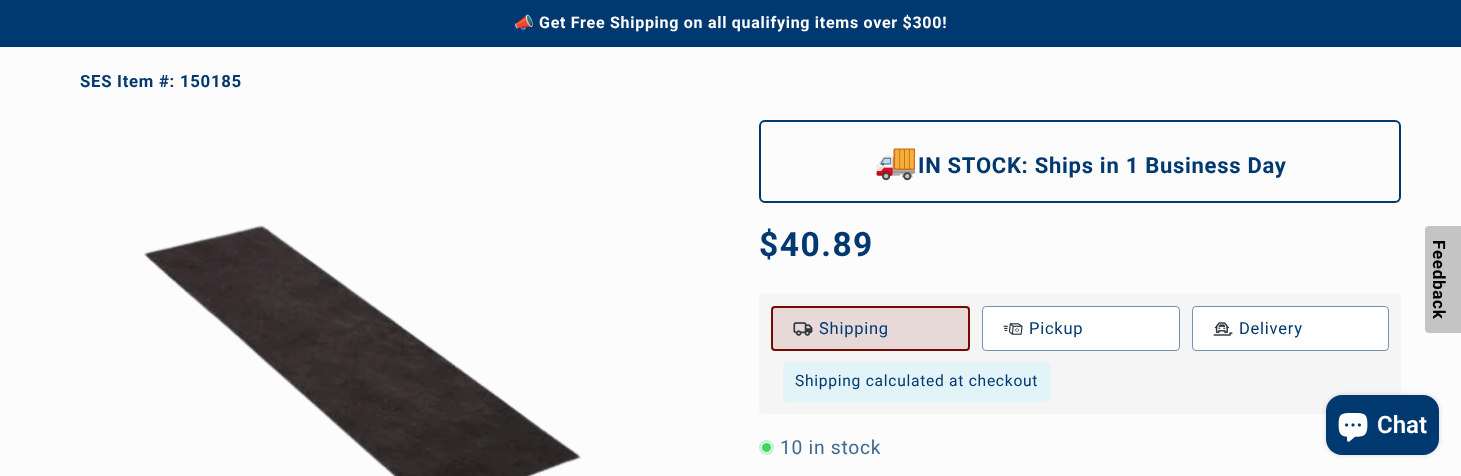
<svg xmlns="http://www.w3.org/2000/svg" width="1461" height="476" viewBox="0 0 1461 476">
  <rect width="100%" height="100%" fill="rgb(252,252,252)"/>
  <rect x="0" y="0" width="1461" height="47" fill="rgb(0,56,112)"/>
  <text x="514" y="28" font-family="Noto Color Emoji" font-size="16" font-weight="bold" letter-spacing="0.72" fill="rgb(255,255,255)">📣</text>
  <text x="539" y="28" font-family="Roboto" font-size="16" font-weight="bold" letter-spacing="0.72" fill="rgb(255,255,255)">Get Free Shipping on all qualifying items over $300!</text>
  <text x="80" y="87" font-family="Roboto" font-size="16.75" font-weight="bold" letter-spacing="0.72" fill="rgb(0,56,112)">SES Item #: 150185</text>
  <image x="143" y="225" width="439" height="251" href="pic1.png"/>
  <rect x="760" y="121" width="640" height="81" rx="5" fill="none" stroke="rgb(0,56,112)" stroke-width="2"/>
  <text x="874" y="173" font-family="Noto Color Emoji" font-size="35" font-weight="bold" letter-spacing="0.72" fill="rgb(0,56,112)">🚚</text>
  <text x="918" y="173" font-family="Roboto" font-size="22" font-weight="bold" letter-spacing="0.72" fill="rgb(0,56,112)">IN STOCK: Ships in 1 Business Day</text>
  <text x="759" y="256" font-family="Roboto" font-size="33.5" font-weight="bold" letter-spacing="1.5" fill="rgb(0,56,112)">$40.89</text>
  <rect x="759" y="293" width="642" height="121" rx="4" fill="rgb(245,245,245)"/>
  <rect x="772" y="307" width="197" height="43" rx="3" fill="rgb(230,217,216)" stroke="rgb(117,11,0)" stroke-width="2"/>
  <image x="793" y="322" width="20" height="14" href="pic2.png"/>
  <text x="819" y="334" font-family="Roboto" font-size="16.5" letter-spacing="0.75" fill="rgb(0,56,112)">Shipping</text>
  <rect x="982" y="306" width="198" height="45" rx="4" fill="rgb(255,255,255)"/>
  <rect x="982.5" y="306.5" width="197" height="44" rx="3.5" fill="none" stroke="rgba(0,56,112,0.55)"/>
  <image x="1003" y="323" width="20" height="12" href="pic3.png"/>
  <text x="1029" y="334" font-family="Roboto" font-size="16.5" letter-spacing="0.75" fill="rgb(0,56,112)">Pickup</text>
  <rect x="1192" y="306" width="197" height="45" rx="4" fill="rgb(255,255,255)"/>
  <rect x="1192.5" y="306.5" width="196" height="44" rx="3.5" fill="none" stroke="rgba(0,56,112,0.55)"/>
  <image x="1213" y="322" width="20" height="14" href="pic4.png"/>
  <text x="1239" y="334" font-family="Roboto" font-size="16.5" letter-spacing="0.75" fill="rgb(0,56,112)">Delivery</text>
  <rect x="783" y="362" width="268" height="40" rx="4" fill="rgb(227,244,248)"/>
  <text x="795" y="386" font-family="Roboto" font-size="15.6" letter-spacing="0.72" fill="rgb(0,56,112)">Shipping calculated at checkout</text>
  <circle cx="766.5" cy="447.5" r="7.5" fill="rgb(195,241,205)"/>
  <circle cx="766.5" cy="447.5" r="5" fill="rgb(62,214,96)" stroke="rgb(255,255,255)"/>
  <text x="780" y="454" font-family="Roboto" font-size="19.25" letter-spacing="0.72" fill="rgb(63,105,147)">10 in stock</text>
  <path d="M1461 226V333H1429C1426 333 1425 331 1425 329V230C1425 228 1426 226 1429 226Z" fill="rgb(196,196,196)"/>
  <text x="1433" y="240" transform="rotate(90 1433 240)" font-family="Roboto" font-size="17" font-weight="bold" letter-spacing="0.72" fill="rgb(0,0,0)">Feedback</text>
  <rect x="1326" y="395" width="113" height="60" rx="16" fill="rgba(0,0,0,0.15)" filter="blur(2.5px)"/>
  <rect x="1326" y="395" width="113" height="60" rx="16" fill="rgb(0,56,112)"/>
  <image x="1338" y="413" width="30" height="29" href="pic5.png"/>
  <text x="1377" y="433" font-family="Roboto" font-size="24" font-weight="600" fill="rgb(255,255,255)">Chat</text>
</svg>
